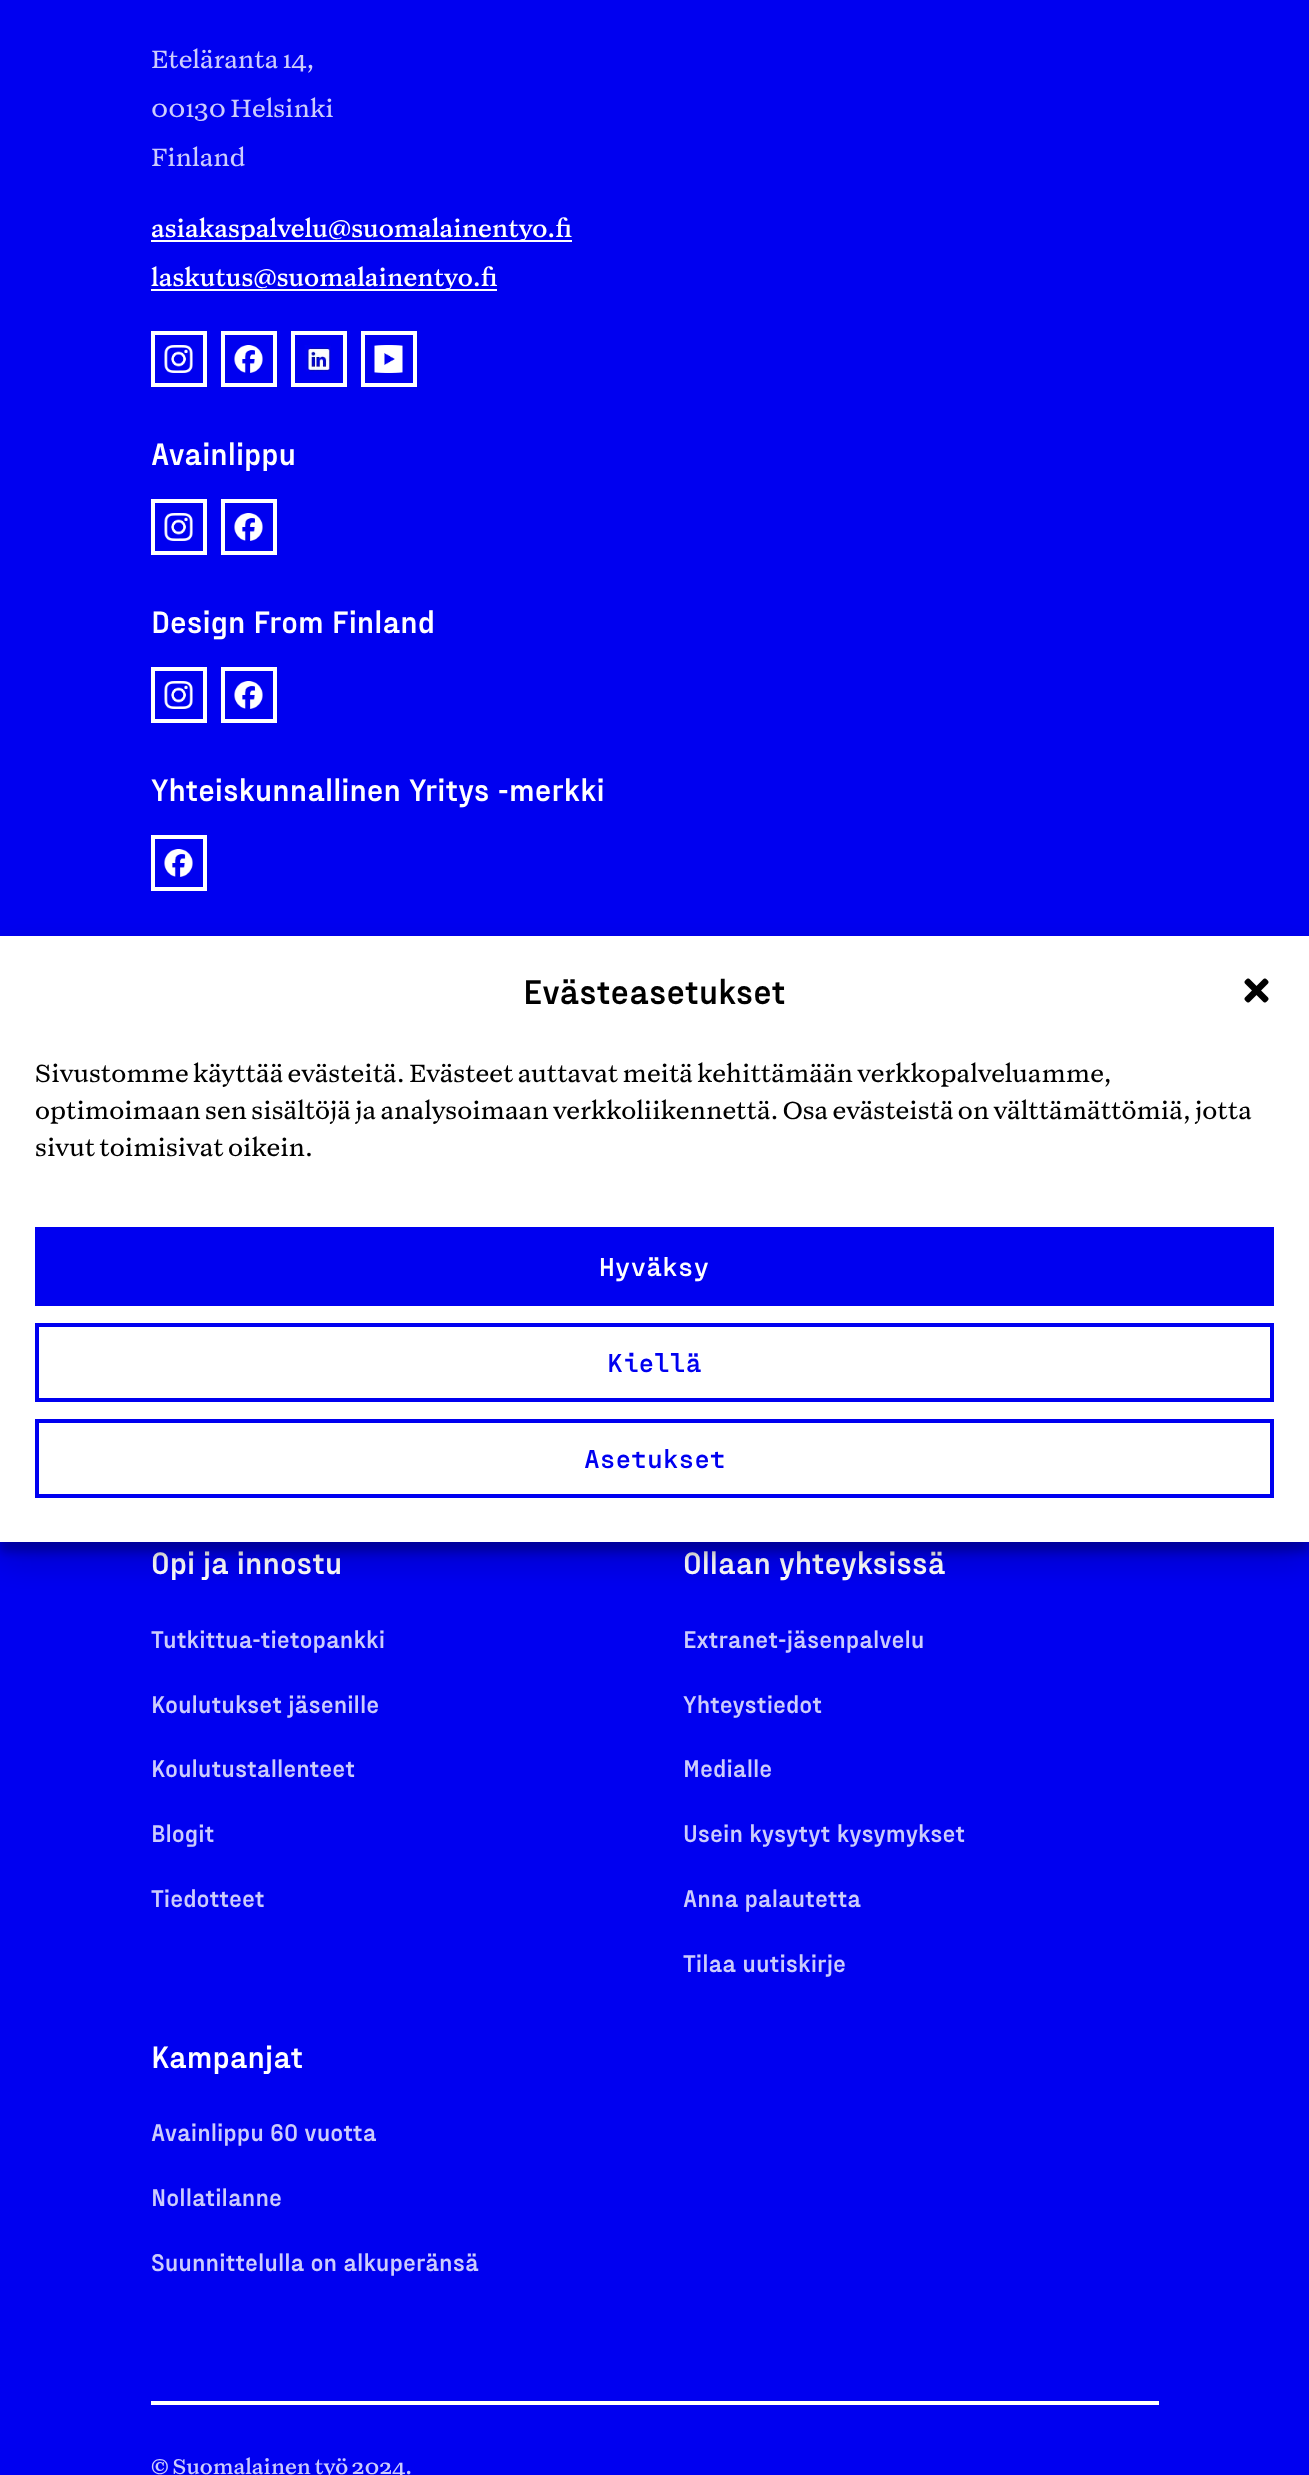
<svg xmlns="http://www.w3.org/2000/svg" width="1309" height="2475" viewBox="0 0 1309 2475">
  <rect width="100%" height="100%" fill="rgb(0,0,240)"/>
  <g font-family="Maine" font-size="24.5" font-weight="300" fill="rgb(204,204,252)">
    <text x="151" y="68">Eteläranta 14,</text>
    <text x="151" y="117">00130 Helsinki</text>
    <text x="151" y="166">Finland</text>
  </g>
  <rect x="151" y="240" width="421" height="2" fill="rgb(255,255,255)"/>
  <text x="151" y="237" font-family="Maine" font-size="24.5" fill="rgb(255,255,255)">asiakaspalvelu@suomalainentyo.fi</text>
  <rect x="151" y="289" width="346" height="2" fill="rgb(255,255,255)"/>
  <text x="151" y="286" font-family="Maine" font-size="24.5" fill="rgb(255,255,255)">laskutus@suomalainentyo.fi</text>
  <rect x="153" y="333" width="52" height="52" fill="none" stroke="rgb(255,255,255)" stroke-width="4"/>
  <image x="164" y="345" width="29" height="28" href="pic1.png"/>
  <rect x="223" y="333" width="52" height="52" fill="none" stroke="rgb(255,255,255)" stroke-width="4"/>
  <image x="234" y="345" width="29" height="28" href="pic2.png"/>
  <rect x="293" y="333" width="52" height="52" fill="none" stroke="rgb(255,255,255)" stroke-width="4"/>
  <image x="304" y="345" width="27" height="27" href="pic3.png"/>
  <rect x="363" y="333" width="52" height="52" fill="none" stroke="rgb(255,255,255)" stroke-width="4"/>
  <image x="374" y="345" width="29" height="28" href="pic4.png"/>
  <text x="151" y="465" font-family="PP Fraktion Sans" font-size="31.5" font-weight="bold" fill="rgb(255,255,255)">Avainlippu</text>
  <rect x="153" y="501" width="52" height="52" fill="none" stroke="rgb(255,255,255)" stroke-width="4"/>
  <image x="164" y="513" width="29" height="28" href="pic1.png"/>
  <rect x="223" y="501" width="52" height="52" fill="none" stroke="rgb(255,255,255)" stroke-width="4"/>
  <image x="234" y="513" width="29" height="28" href="pic2.png"/>
  <text x="151" y="633" font-family="PP Fraktion Sans" font-size="31.5" font-weight="bold" fill="rgb(255,255,255)">Design From Finland</text>
  <rect x="153" y="669" width="52" height="52" fill="none" stroke="rgb(255,255,255)" stroke-width="4"/>
  <image x="164" y="681" width="29" height="28" href="pic1.png"/>
  <rect x="223" y="669" width="52" height="52" fill="none" stroke="rgb(255,255,255)" stroke-width="4"/>
  <image x="234" y="681" width="29" height="28" href="pic2.png"/>
  <text x="151" y="801" font-family="PP Fraktion Sans" font-size="31.5" font-weight="bold" fill="rgb(255,255,255)">Yhteiskunnallinen Yritys -merkki</text>
  <rect x="153" y="837" width="52" height="52" fill="none" stroke="rgb(255,255,255)" stroke-width="4"/>
  <image x="164" y="849" width="29" height="28" href="pic5.png"/>
  <text x="151" y="1574" font-family="PP Fraktion Sans" font-size="31.5" font-weight="bold" fill="rgb(255,255,255)">Opi ja innostu</text>
  <g font-family="PP Fraktion Sans" font-size="24.5" font-weight="bold" fill="rgb(204,204,252)">
    <text x="151" y="1648">Tutkittua-tietopankki</text>
    <text x="151" y="1713">Koulutukset jäsenille</text>
    <text x="151" y="1777">Koulutustallenteet</text>
    <text x="151" y="1842">Blogit</text>
    <text x="151" y="1907">Tiedotteet</text>
  </g>
  <text x="683" y="1574" font-family="PP Fraktion Sans" font-size="31.5" font-weight="bold" fill="rgb(255,255,255)">Ollaan yhteyksissä</text>
  <g font-family="PP Fraktion Sans" font-size="24.5" font-weight="bold" fill="rgb(204,204,252)">
    <text x="683" y="1648">Extranet-jäsenpalvelu</text>
    <text x="683" y="1713">Yhteystiedot</text>
    <text x="683" y="1777">Medialle</text>
    <text x="683" y="1842">Usein kysytyt kysymykset</text>
    <text x="683" y="1907">Anna palautetta</text>
    <text x="683" y="1972">Tilaa uutiskirje</text>
  </g>
  <text x="151" y="2068" font-family="PP Fraktion Sans" font-size="31.5" font-weight="bold" fill="rgb(255,255,255)">Kampanjat</text>
  <g font-family="PP Fraktion Sans" font-size="24.5" font-weight="bold" fill="rgb(204,204,252)">
    <text x="151" y="2141">Avainlippu 60 vuotta</text>
    <text x="151" y="2206">Nollatilanne</text>
    <text x="151" y="2271">Suunnittelulla on alkuperänsä</text>
  </g>
  <rect x="151" y="2401" width="1008" height="4" fill="rgb(255,255,255)"/>
  <text x="151" y="2474" font-family="Maine" font-size="21" fill="rgb(204,204,252)">© Suomalainen työ 2024.</text>
  <rect x="0" y="947" width="1309" height="605" fill="rgba(0,0,0,0.23)" filter="blur(5px)"/>
  <rect x="0" y="954" width="1309" height="605" fill="rgba(0,0,0,0.19)" filter="blur(17.5px)"/>
  <rect x="0" y="936" width="1309" height="606" fill="rgb(255,255,255)"/>
  <text x="523" y="1004" font-family="PP Fraktion Sans" font-size="35" font-weight="bold" fill="rgb(0,0,0)">Evästeasetukset</text>
  <image x="1244" y="978" width="25" height="25" href="pic6.png"/>
  <g font-family="Maine" font-size="24.5" font-weight="300" fill="rgb(0,0,0)">
    <text>
      <tspan x="35" y="1082">Sivustomme käyttää evästeitä. Evästeet auttavat meitä kehittämään verkkopalveluamme,</tspan>
      <tspan x="35" y="1119">optimoimaan sen sisältöjä ja analysoimaan verkkoliikennettä. Osa evästeistä on välttämättömiä, jotta</tspan>
      <tspan x="35" y="1156">sivut toimisivat oikein.</tspan>
    </text>
  </g>
  <rect x="35" y="1227" width="1239" height="79" fill="rgb(0,0,240)"/>
  <text x="599" y="1276" font-family="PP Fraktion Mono" font-size="26.25" font-weight="bold" fill="rgb(255,255,255)">Hyväksy</text>
  <rect x="37" y="1325" width="1235" height="75" fill="none" stroke="rgb(0,0,240)" stroke-width="4"/>
  <text x="607" y="1372" font-family="PP Fraktion Mono" font-size="26.25" font-weight="bold" fill="rgb(0,0,240)">Kiellä</text>
  <rect x="37" y="1421" width="1235" height="75" fill="none" stroke="rgb(0,0,240)" stroke-width="4"/>
  <text x="584" y="1468" font-family="PP Fraktion Mono" font-size="26.25" font-weight="bold" fill="rgb(0,0,240)">Asetukset</text>
</svg>
